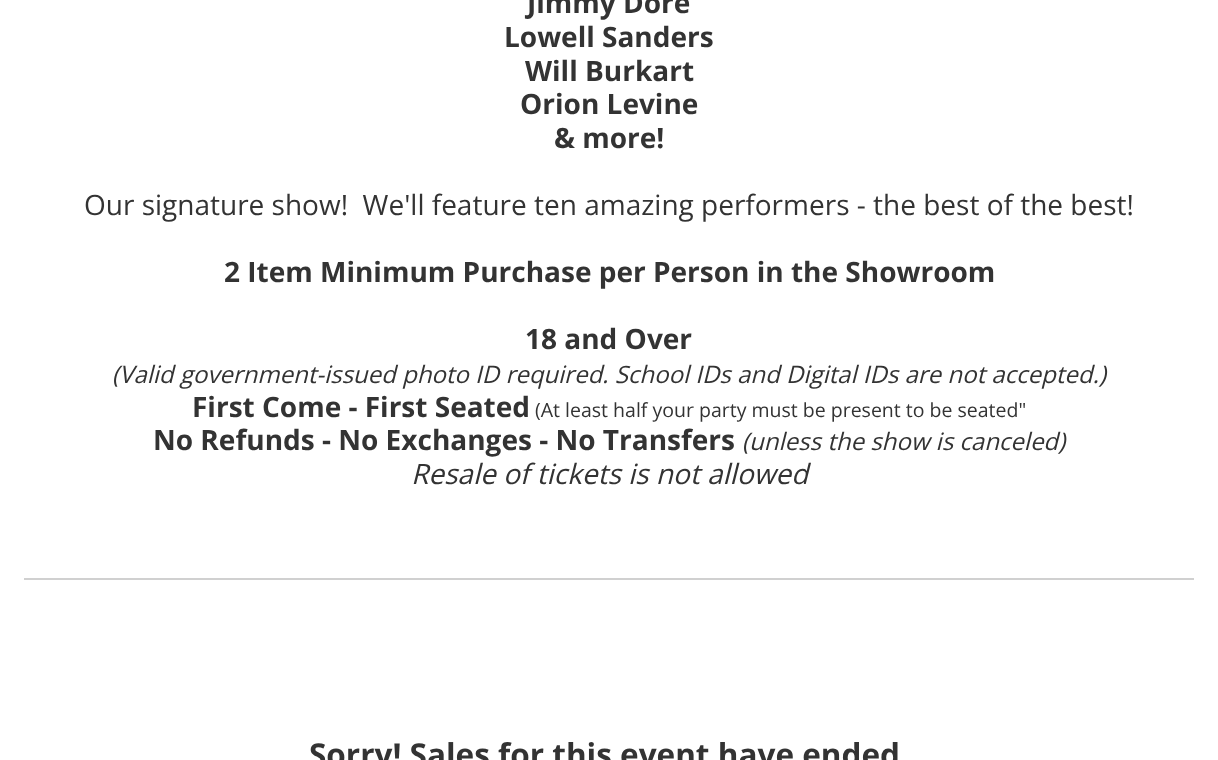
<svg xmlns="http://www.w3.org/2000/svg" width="1218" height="760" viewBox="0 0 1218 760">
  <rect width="100%" height="100%" fill="rgb(255,255,255)"/>
  <g font-family="Open Sans" font-size="28" font-weight="bold" fill="rgb(51,51,51)">
    <text x="527" y="13">Jimmy Dore</text>
    <text x="504" y="47">Lowell Sanders</text>
    <text x="525" y="81">Will Burkart</text>
    <text x="520" y="114">Orion Levine</text>
    <text x="554" y="148">&amp; more!</text>
  </g>
  <text x="84" y="215" font-family="Open Sans" font-size="28" fill="rgb(51,51,51)" xml:space="preserve">Our signature show!  We'll feature ten amazing performers - the best of the best!</text>
  <g font-family="Open Sans" font-size="28" font-weight="bold" fill="rgb(51,51,51)">
    <text x="224" y="282">2 Item Minimum Purchase per Person in the Showroom</text>
    <text x="525" y="349">18 and Over</text>
  </g>
  <text x="112" y="383" font-family="Open Sans" font-size="24" font-style="italic" fill="rgb(51,51,51)">(Valid government-issued photo ID required. School IDs and Digital IDs are not accepted.)</text>
  <text x="192" y="417" font-family="Open Sans" font-size="28" font-weight="bold" fill="rgb(51,51,51)">First Come - First Seated</text>
  <text x="535" y="417" font-family="Open Sans" font-size="19.5" fill="rgb(51,51,51)">(At least half your party must be present to be seated"</text>
  <text x="153" y="450" font-family="Open Sans" font-size="28" font-weight="bold" fill="rgb(51,51,51)">No Refunds - No Exchanges - No Transfers</text>
  <text x="742" y="450" font-family="Open Sans" font-size="24" font-style="italic" fill="rgb(51,51,51)">(unless the show is canceled)</text>
  <text x="411" y="484" font-family="Open Sans" font-size="28" font-style="italic" fill="rgb(51,51,51)">Resale of tickets is not allowed</text>
  <rect x="24" y="578" width="1170" height="2" fill="rgb(208,208,208)"/>
  <text x="309" y="766" font-family="Open Sans" font-size="31.5" font-weight="bold" fill="rgb(51,51,51)">Sorry! Sales for this event have ended</text>
</svg>
